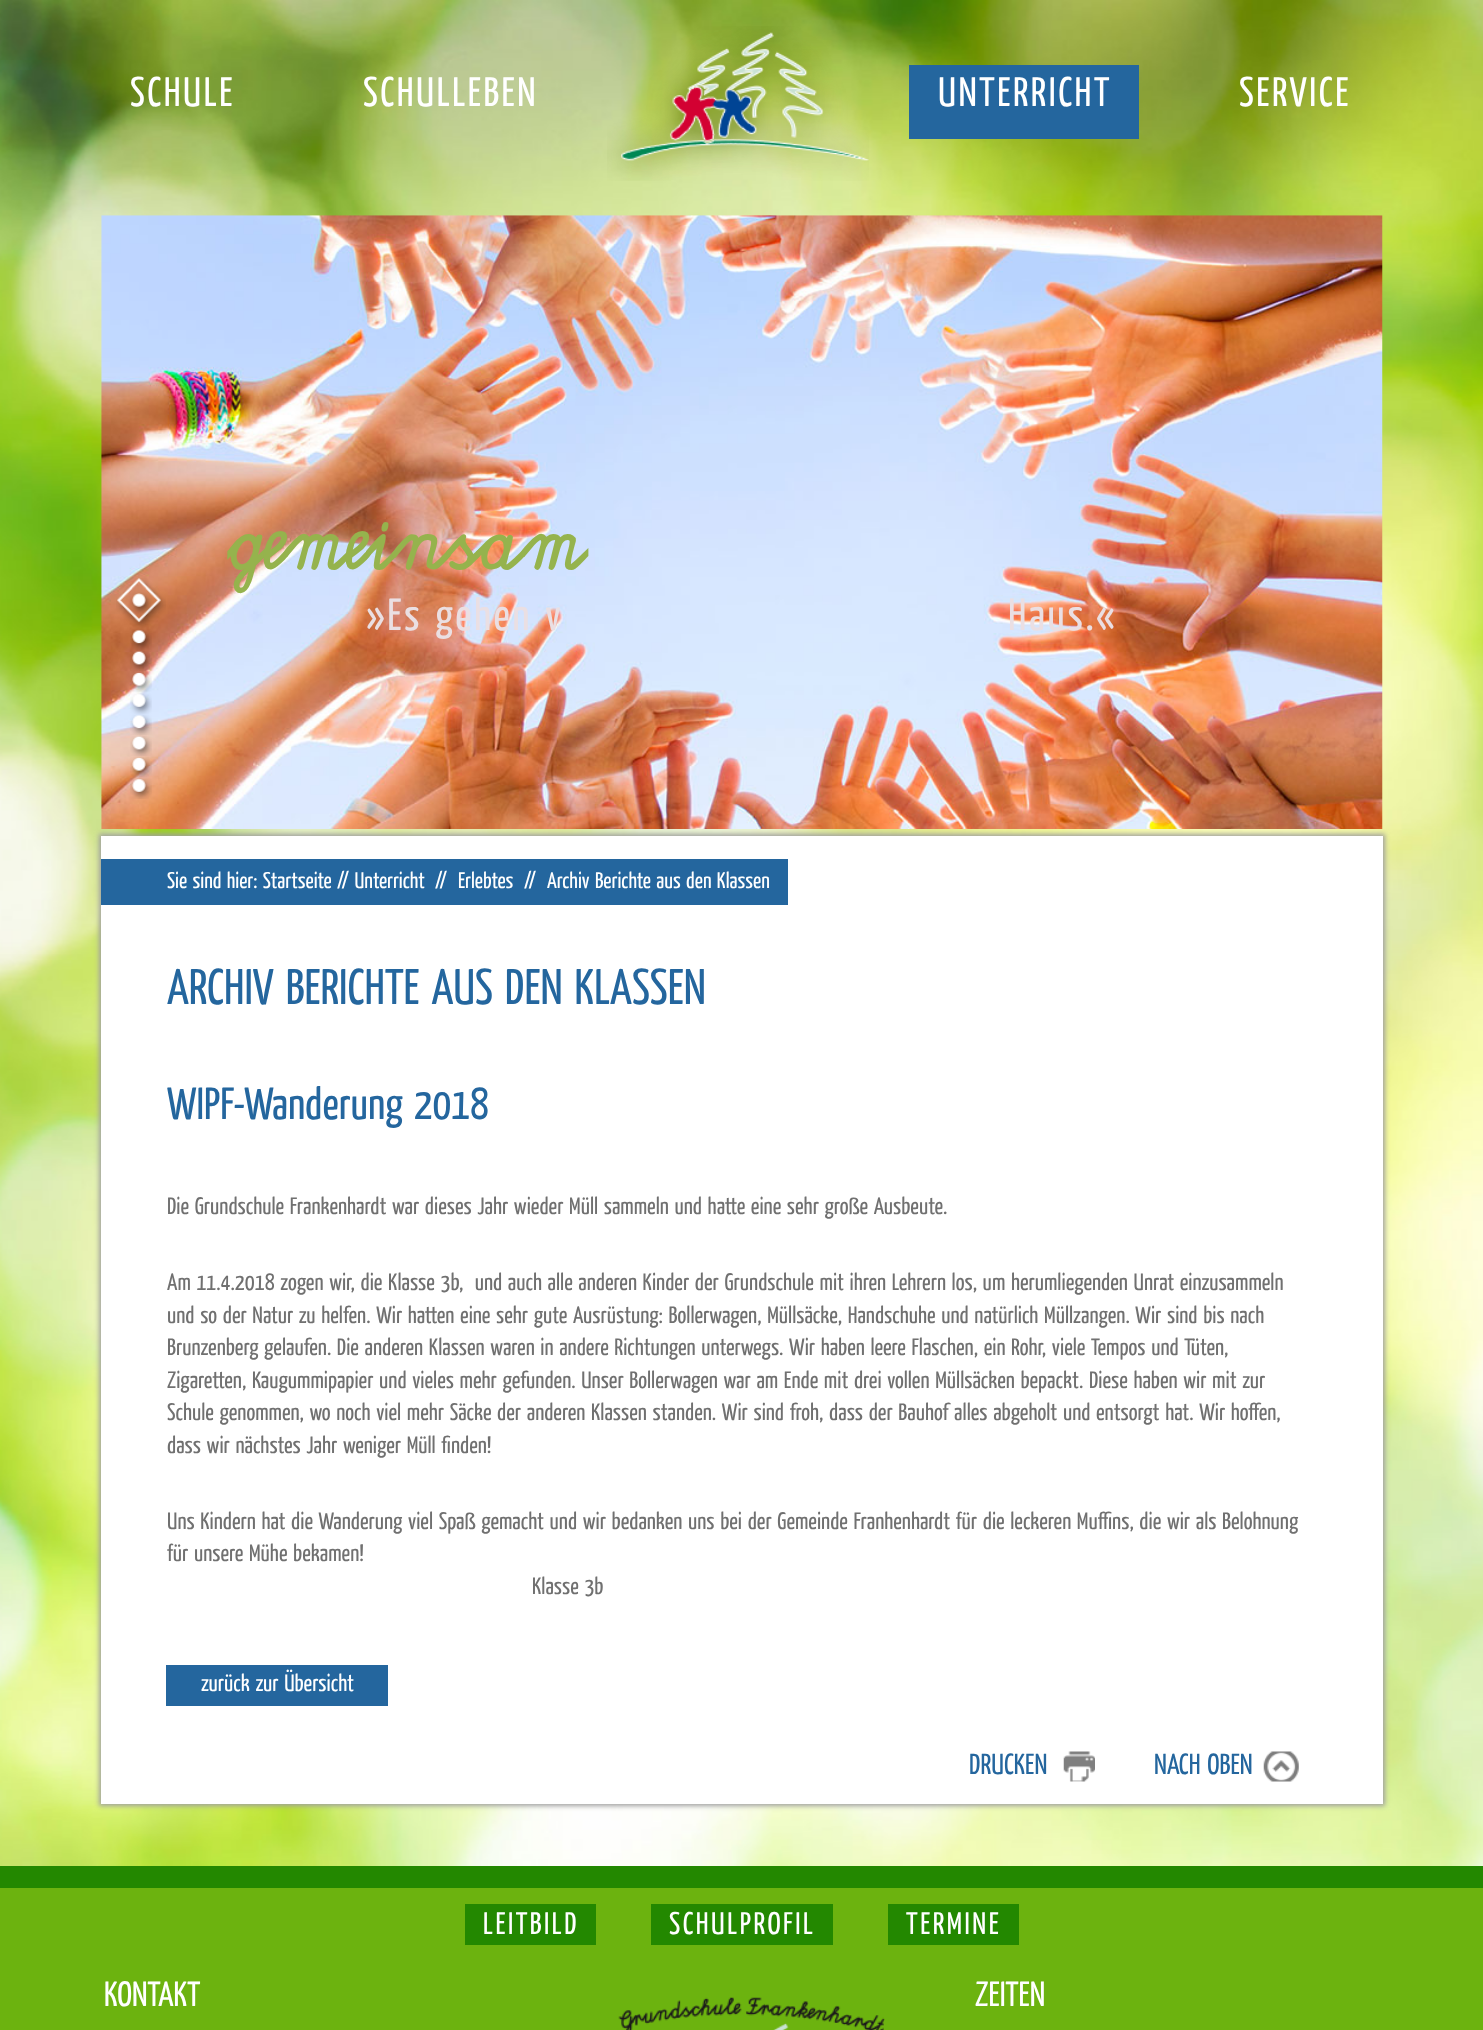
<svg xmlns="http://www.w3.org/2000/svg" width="1483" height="2030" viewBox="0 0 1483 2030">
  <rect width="100%" height="100%" fill="rgb(255,255,255)"/>
  <image x="0" y="0" width="1483" height="1866" href="pic1.png"/>
  <image x="607" y="26" width="262" height="155" href="pic2.png"/>
  <g font-family="Yanone Kaffeesatz" font-size="41.25" letter-spacing="2.5" fill="rgb(255,255,255)">
    <text x="130" y="106">SCHULE</text>
    <text x="363" y="106">SCHULLEBEN</text>
  </g>
  <rect x="909" y="65" width="230" height="74" fill="rgb(36,102,158)"/>
  <g font-family="Yanone Kaffeesatz" font-size="41.25" letter-spacing="2.5" fill="rgb(255,255,255)">
    <text x="938" y="106">UNTERRICHT</text>
    <text x="1239" y="106">SERVICE</text>
  </g>
  <rect x="99" y="834" width="1286" height="972" fill="rgb(160,160,160)" filter="blur(2.5px)"/>
  <image x="101" y="215" width="1282" height="614" href="pic12.png"/>
  <image x="116" y="578" width="50" height="51" href="pic3.png"/>
  <image x="130" y="629" width="22" height="21" href="pic4.png"/>
  <image x="130" y="650" width="22" height="22" href="pic5.png"/>
  <image x="130" y="672" width="22" height="21" href="pic6.png"/>
  <image x="130" y="693" width="22" height="21" href="pic7.png"/>
  <image x="130" y="714" width="22" height="21" href="pic8.png"/>
  <image x="130" y="735" width="22" height="22" href="pic9.png"/>
  <image x="130" y="757" width="22" height="21" href="pic10.png"/>
  <image x="130" y="778" width="22" height="21" href="pic11.png"/>
  <text x="229" y="568" font-family="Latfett" font-size="82.5" fill="rgb(149,179,77)">gemeinsam</text>
  <g font-family="Yanone Kaffeesatz" font-size="45" letter-spacing="2.5" fill="rgb(234,223,227)">
    <text x="366" y="630">»Es gehen v</text>
    <text x="1008" y="630">Haus.«</text>
  </g>
  <rect x="101" y="836" width="1282" height="968" fill="rgb(255,255,255)"/>
  <rect x="101" y="859" width="687" height="46" fill="rgb(36,102,158)"/>
  <g font-family="Yanone Kaffeesatz" font-size="22.5" fill="rgb(255,255,255)">
    <text x="167" y="888">Sie sind hier: Startseite // Unterricht</text>
    <text x="435" y="888">//</text>
    <text x="458" y="888">Erlebtes</text>
    <text x="524" y="888">//</text>
    <text x="547" y="888">Archiv Berichte aus den Klassen</text>
  </g>
  <text x="167" y="1004" font-family="Yanone Kaffeesatz" font-size="50" fill="rgb(36,102,158)">ARCHIV BERICHTE AUS DEN KLASSEN</text>
  <text x="167" y="1119" font-family="Yanone Kaffeesatz" font-size="45" fill="rgb(36,102,158)">WIPF-Wanderung 2018</text>
  <g font-family="Yanone Kaffeesatz" font-size="23.75" fill="rgb(112,112,112)">
    <text x="167" y="1214">Die Grundschule Frankenhardt war dieses Jahr wieder Müll sammeln und hatte eine sehr große Ausbeute.</text>
    <text xml:space="preserve"><tspan x="167" y="1290">Am 11.4.2018 zogen wir, die Klasse 3b,  und auch alle anderen Kinder der Grundschule mit ihren Lehrern los, um herumliegenden Unrat einzusammeln</tspan><tspan x="167" y="1323">und so der Natur zu helfen. Wir hatten eine sehr gute Ausrüstung: Bollerwagen, Müllsäcke, Handschuhe und natürlich Müllzangen. Wir sind bis nach</tspan><tspan x="167" y="1355">Brunzenberg gelaufen. Die anderen Klassen waren in andere Richtungen unterwegs. Wir haben leere Flaschen, ein Rohr, viele Tempos und Tüten,</tspan><tspan x="167" y="1388">Zigaretten, Kaugummipapier und vieles mehr gefunden. Unser Bollerwagen war am Ende mit drei vollen Müllsäcken bepackt. Diese haben wir mit zur</tspan><tspan x="167" y="1420">Schule genommen, wo noch viel mehr Säcke der anderen Klassen standen. Wir sind froh, dass der Bauhof alles abgeholt und entsorgt hat. Wir hoffen,</tspan><tspan x="167" y="1453">dass wir nächstes Jahr weniger Müll finden!</tspan></text>
    <text>
      <tspan x="167" y="1529">Uns Kindern hat die Wanderung viel Spaß gemacht und wir bedanken uns bei der Gemeinde Franhenhardt für die leckeren Muffins, die wir als Belohnung</tspan>
      <tspan x="167" y="1561">für unsere Mühe bekamen!</tspan>
    </text>
    <text x="532" y="1594">Klasse 3b</text>
  </g>
  <rect x="166" y="1665" width="222" height="41" fill="rgb(36,102,158)"/>
  <text x="201" y="1691" font-family="Yanone Kaffeesatz" font-size="23.75" fill="rgb(255,255,255)">zurück zur Übersicht</text>
  <image x="1063" y="1751" width="32" height="31" href="pic13.png"/>
  <text x="969" y="1774" font-family="Yanone Kaffeesatz" font-size="29" fill="rgb(36,102,158)">DRUCKEN</text>
  <image x="1263" y="1751" width="36" height="31" href="pic14.png"/>
  <text x="1154" y="1774" font-family="Yanone Kaffeesatz" font-size="29" fill="rgb(36,102,158)">NACH OBEN</text>
  <rect x="0" y="1888" width="1483" height="142" fill="rgb(108,179,15)"/>
  <rect x="0" y="1866" width="1483" height="22" fill="rgb(35,136,0)"/>
  <rect x="465" y="1904" width="131" height="41" fill="rgb(35,136,0)"/>
  <text x="483" y="1934" font-family="Yanone Kaffeesatz" font-size="31.25" letter-spacing="2.5" fill="rgb(255,255,255)">LEITBILD</text>
  <rect x="651" y="1904" width="182" height="41" fill="rgb(35,136,0)"/>
  <text x="669" y="1934" font-family="Yanone Kaffeesatz" font-size="31.25" letter-spacing="2.5" fill="rgb(255,255,255)">SCHULPROFIL</text>
  <rect x="888" y="1904" width="131" height="41" fill="rgb(35,136,0)"/>
  <text x="906" y="1934" font-family="Yanone Kaffeesatz" font-size="31.25" letter-spacing="2.5" fill="rgb(255,255,255)">TERMINE</text>
  <g font-family="Yanone Kaffeesatz" font-size="35" fill="rgb(255,255,255)">
    <text x="104" y="2006">KONTAKT</text>
    <text x="975" y="2006">ZEITEN</text>
  </g>
  <image x="618" y="1997" width="267" height="33" href="pic15.png"/>
</svg>
